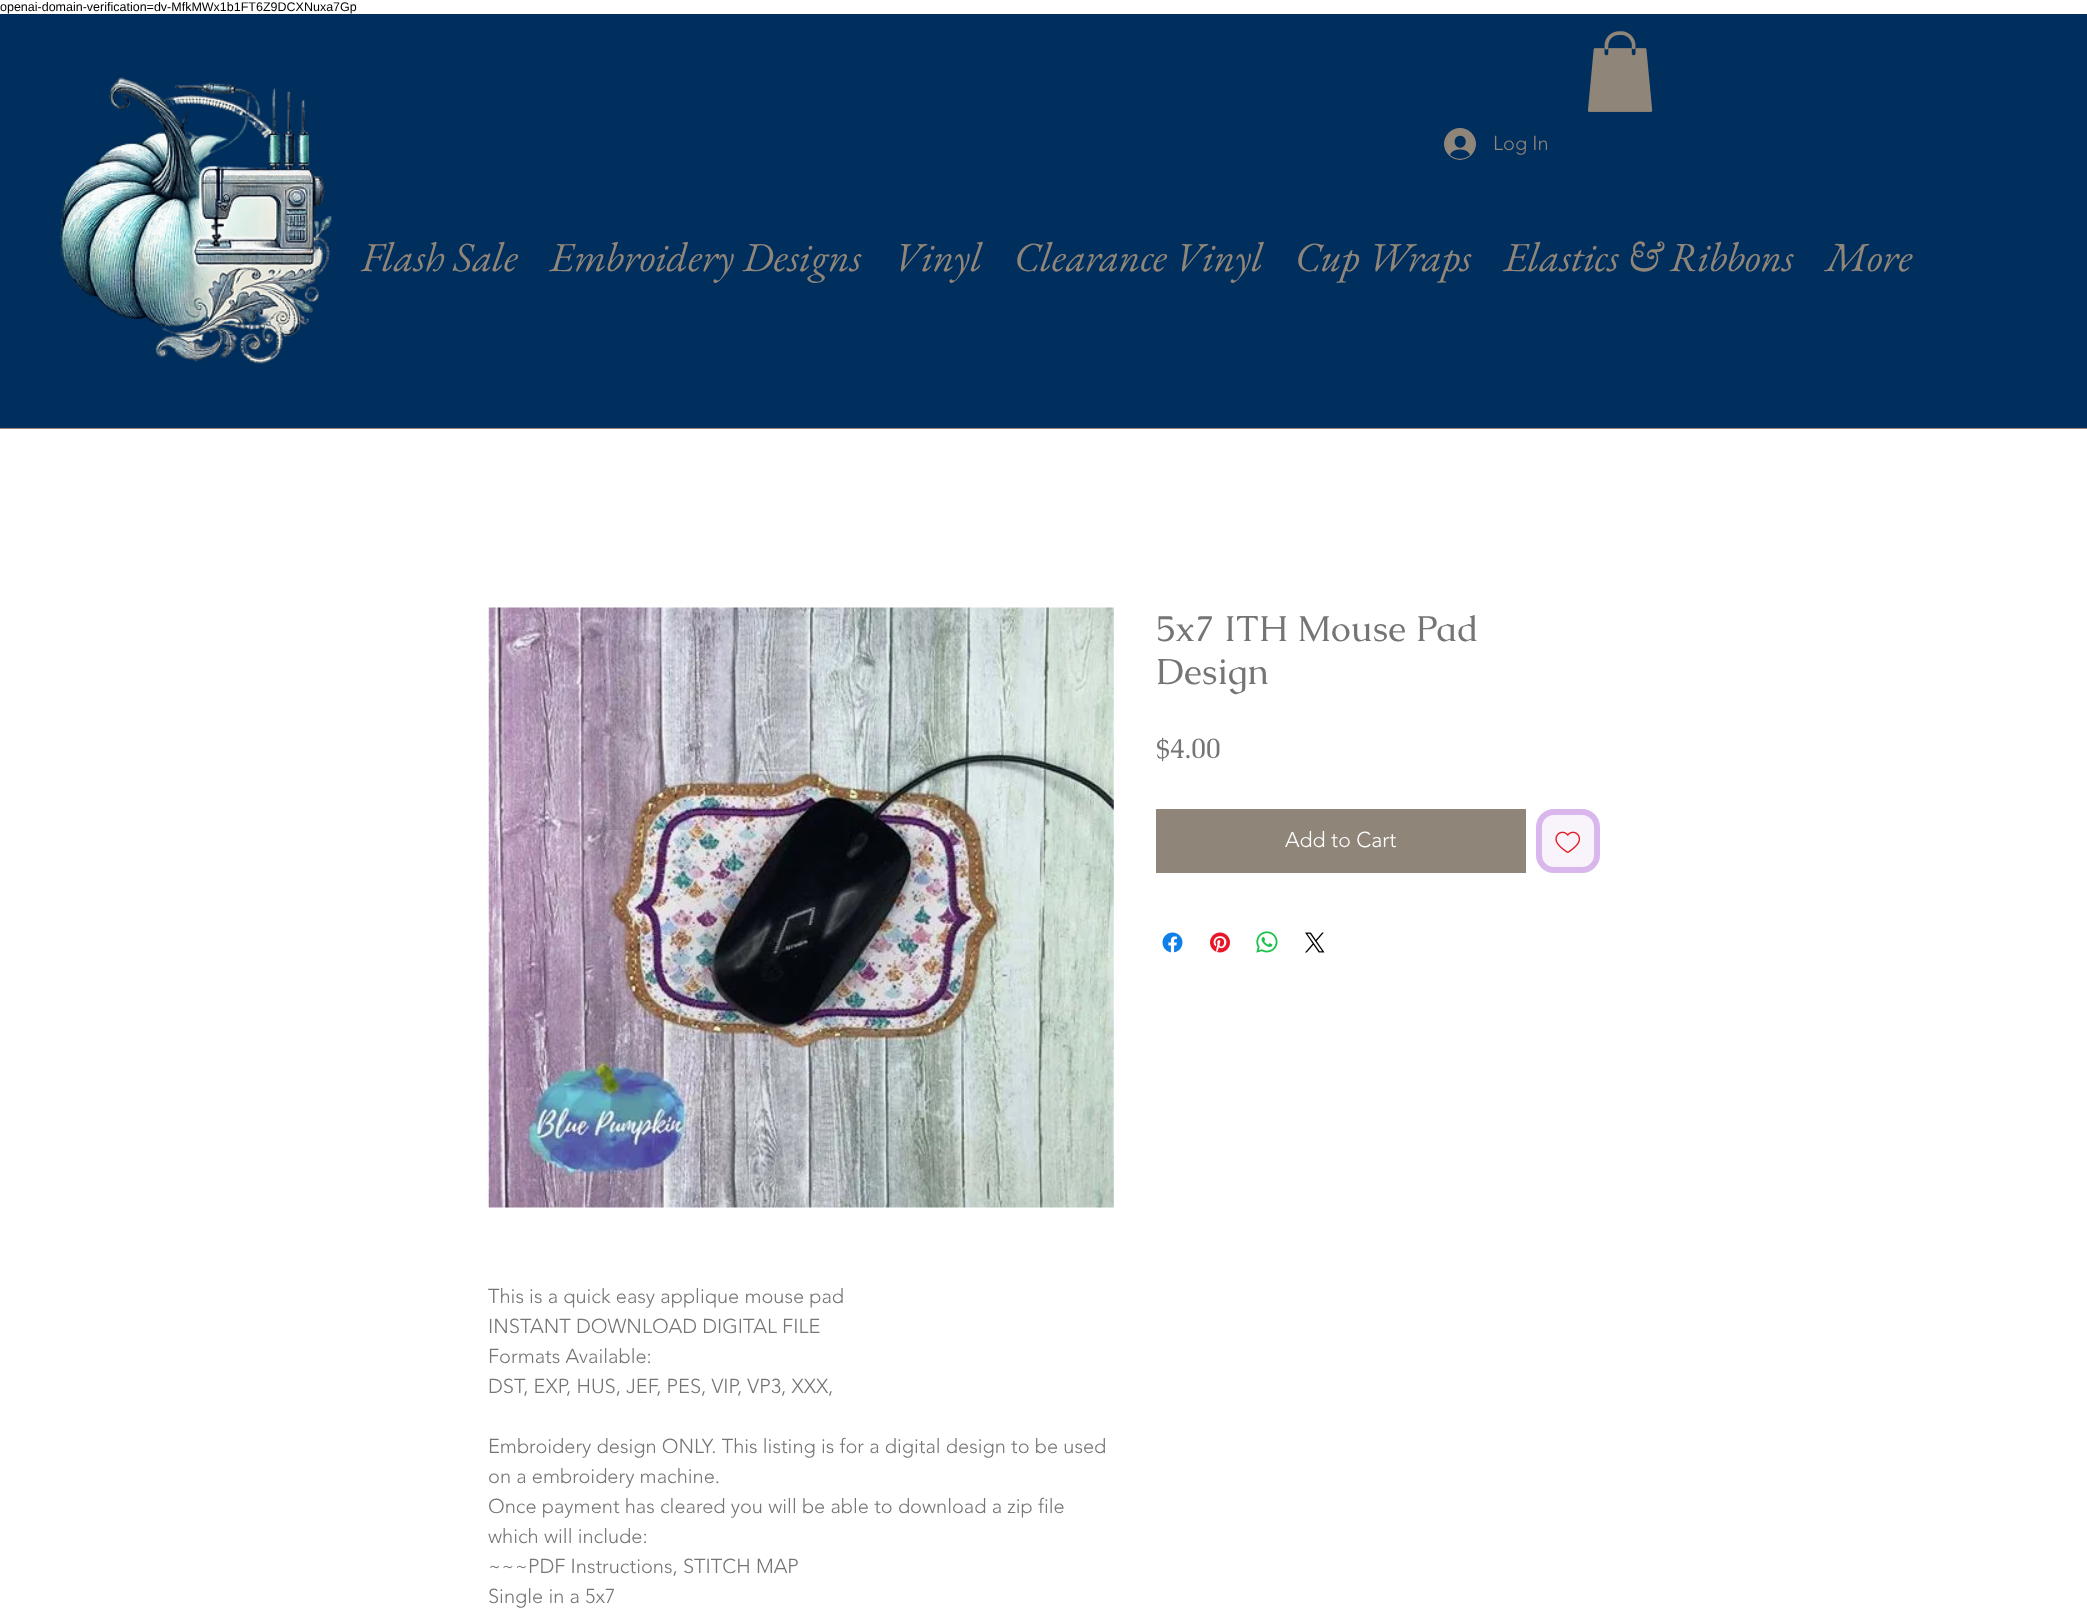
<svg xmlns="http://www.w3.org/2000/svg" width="2087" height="1613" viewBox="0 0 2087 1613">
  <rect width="100%" height="100%" fill="rgb(255,255,255)"/>
  <text x="0" y="11" font-family="Liberation Sans" font-size="12.5" fill="rgb(0,0,0)">openai-domain-verification=dv-MfkMWx1b1FT6Z9DCXNuxa7Gp</text>
  <rect x="0" y="14" width="2087" height="414" fill="rgb(0,46,93)"/>
  <image x="60" y="77" width="272" height="287" href="pic1.png"/>
  <image x="1444" y="128" width="32" height="32" href="pic2.png"/>
  <text x="1493" y="150" font-family="'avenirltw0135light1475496'" font-size="20" font-weight="300" fill="rgb(143,133,121)">Log In</text>
  <image x="1587" y="31" width="66" height="81" href="pic3.png"/>
  <g font-family="EB Garamond" font-size="41.25" font-style="italic" fill="rgb(143,133,121)">
    <text x="361" y="271">Flash Sale</text>
    <text x="550" y="271">Embroidery Designs</text>
    <text x="894" y="271">Vinyl</text>
    <text x="1014" y="271">Clearance Vinyl</text>
    <text x="1295" y="271">Cup Wraps</text>
    <text x="1504" y="271">Elastics &amp; Ribbons</text>
    <text x="1826" y="271">More</text>
  </g>
  <rect x="0" y="428" width="2087" height="1" fill="rgb(143,133,121)"/>
  <g font-family="Caudex" font-size="36.25" fill="rgb(117,117,117)">
    <text>
      <tspan x="1156" y="641">5x7 ITH Mouse Pad</tspan>
      <tspan x="1156" y="684">Design</tspan>
    </text>
  </g>
  <text x="1156" y="758" font-family="Caudex" font-size="27.5" fill="rgb(117,117,117)">$4.00</text>
  <rect x="1156" y="809" width="370" height="64" fill="rgb(143,133,121)"/>
  <text x="1285" y="847" font-family="'avenirltw0135light1475496'" font-size="21.25" font-weight="300" fill="rgb(255,255,255)">Add to Cart</text>
  <rect x="1539" y="812" width="58" height="58" rx="15" fill="rgb(249,244,252)" stroke="rgb(217,183,237)" stroke-width="6"/>
  <image x="1555" y="831" width="26" height="22" href="pic4.png"/>
  <image x="1162" y="932" width="21" height="21" href="pic5.png"/>
  <image x="1210" y="932" width="20" height="21" href="pic6.png"/>
  <image x="1256" y="931" width="22" height="22" href="pic7.png"/>
  <image x="1305" y="932" width="20" height="21" href="pic8.png"/>
  <image x="488" y="607" width="626" height="601" href="pic9.png"/>
  <g font-family="'avenirltw0135light1475496'" font-size="20" font-weight="300" fill="rgb(117,117,117)">
    <text>
      <tspan x="488" y="1303">This is a quick easy applique mouse pad</tspan>
      <tspan x="488" y="1333">INSTANT DOWNLOAD DIGITAL FILE</tspan>
      <tspan x="488" y="1363">Formats Available:</tspan>
      <tspan x="488" y="1393">DST, EXP, HUS, JEF, PES, VIP, VP3, XXX,</tspan>
    </text>
    <text>
      <tspan x="488" y="1453">Embroidery design ONLY. This listing is for a digital design to be used</tspan>
      <tspan x="488" y="1483">on a embroidery machine.</tspan>
      <tspan x="488" y="1513">Once payment has cleared you will be able to download a zip file</tspan>
      <tspan x="488" y="1543">which will include:</tspan>
      <tspan x="488" y="1573">~~~PDF Instructions, STITCH MAP</tspan>
      <tspan x="488" y="1603">Single in a 5x7</tspan>
    </text>
  </g>
</svg>
